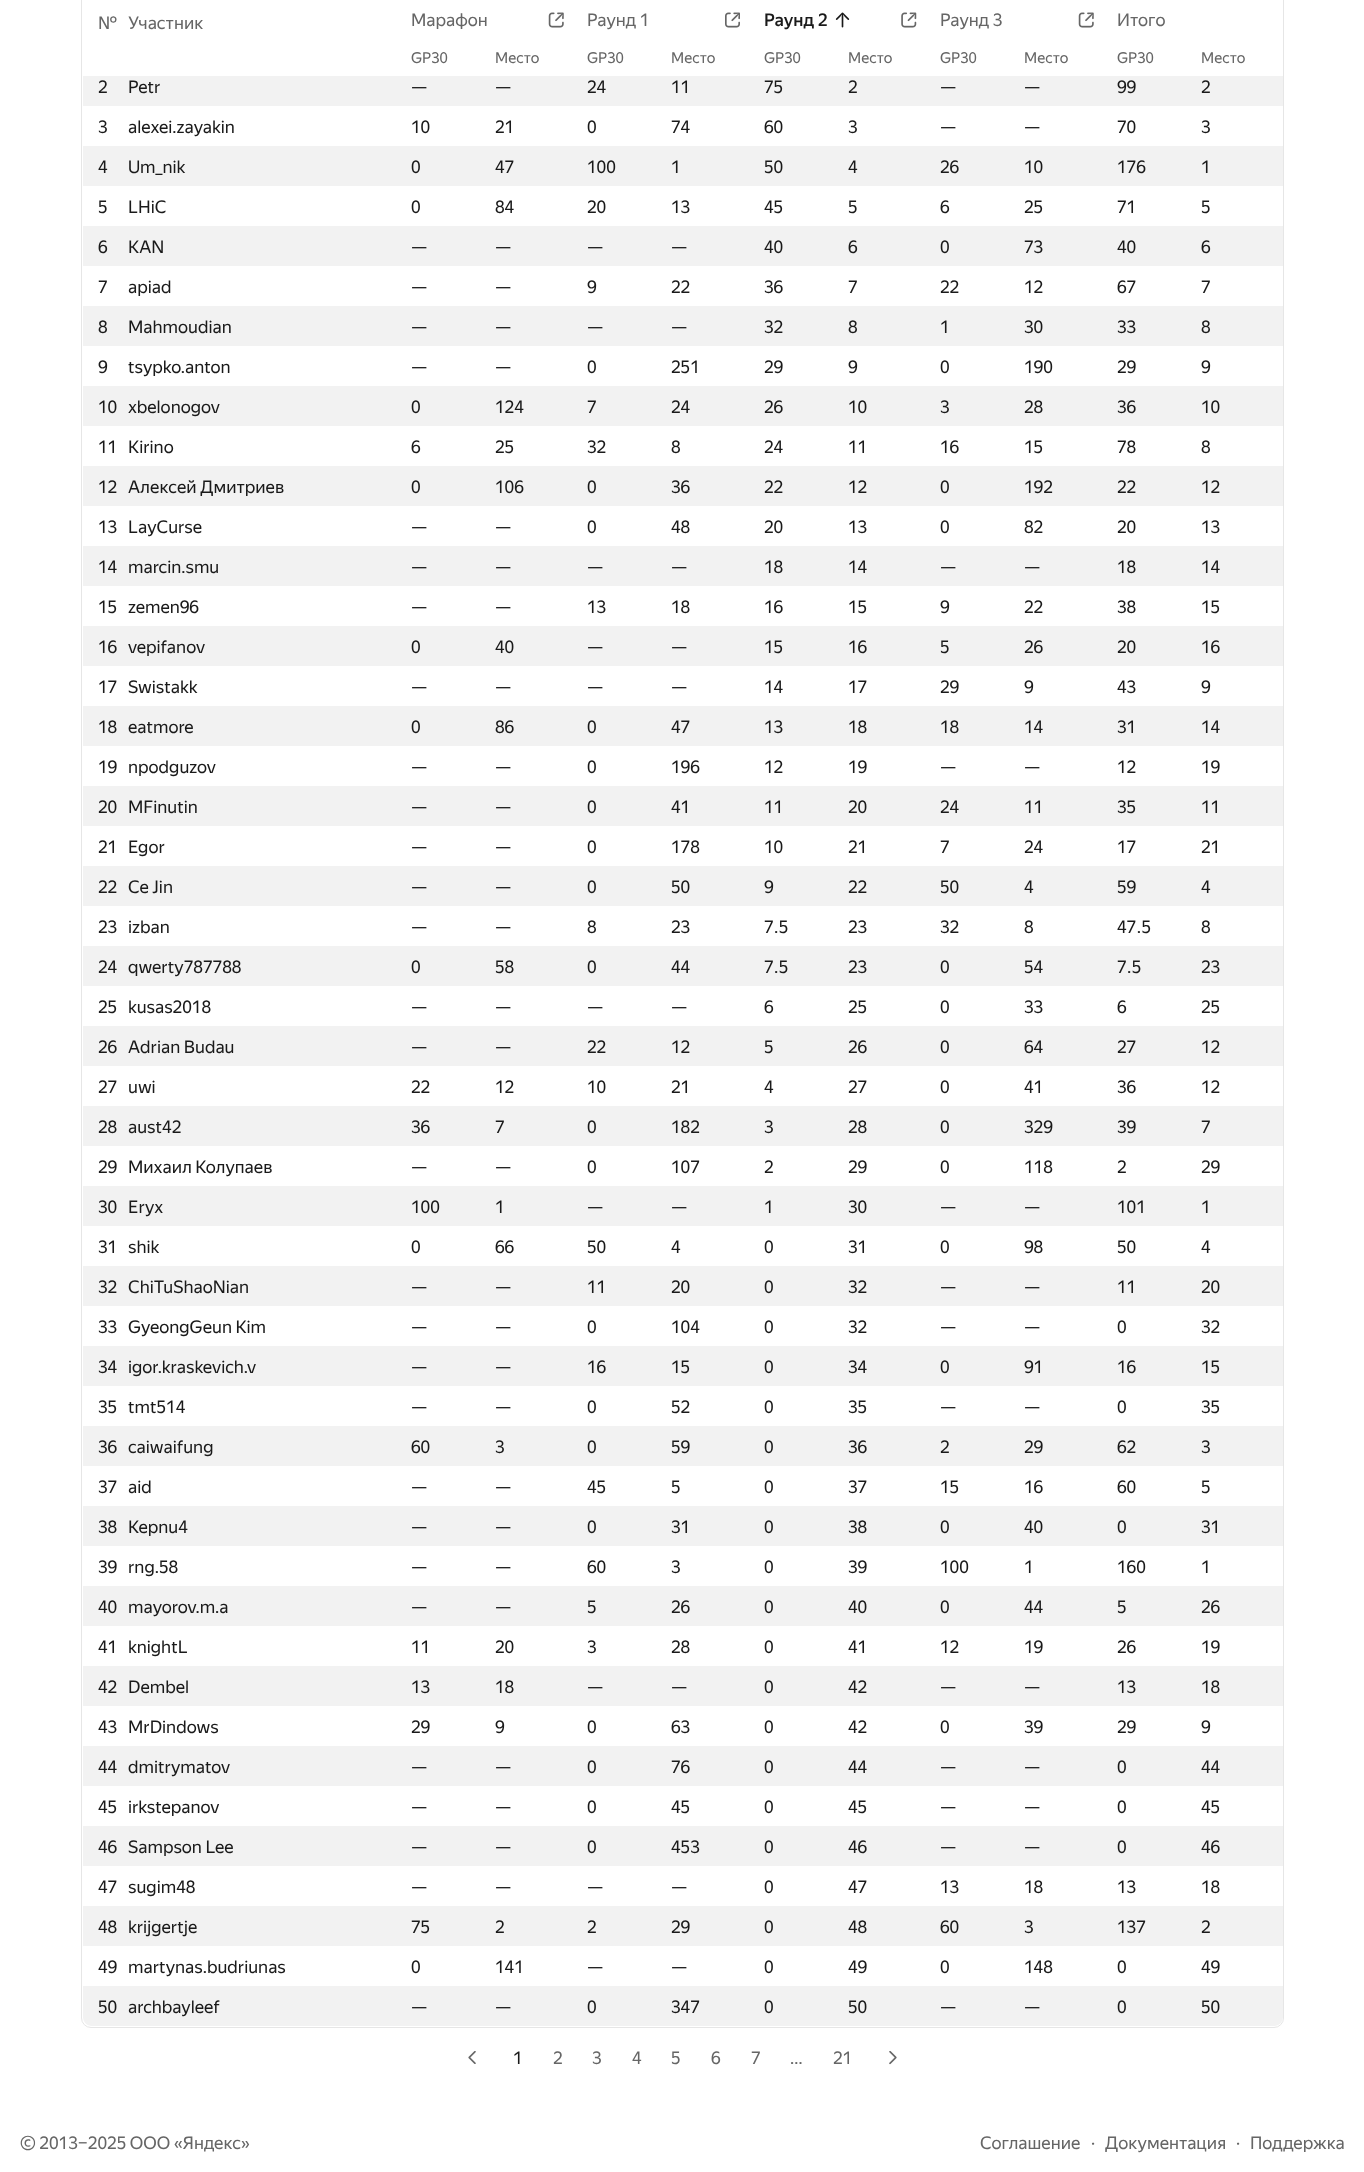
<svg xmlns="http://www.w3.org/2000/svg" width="1364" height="2172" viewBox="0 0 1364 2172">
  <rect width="100%" height="100%" fill="rgb(255,255,255)"/>
  <rect x="81.5" y="-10.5" width="1202" height="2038" rx="9.5" fill="none" stroke="rgb(230,230,230)"/>
  <g font-family="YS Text" font-size="17.5" fill="rgb(102,102,102)">
    <text x="98" y="29">№</text>
    <text x="128" y="29">Участник</text>
    <text x="411" y="26">Марафон</text>
  </g>
  <image x="548" y="12" width="16" height="16" href="pic1.png"/>
  <text x="587" y="26" font-family="YS Text" font-size="17.5" fill="rgb(102,102,102)">Раунд 1</text>
  <image x="725" y="12" width="15" height="16" href="pic2.png"/>
  <text x="764" y="26" font-family="YS Text" font-size="17.5" font-weight="500" fill="rgb(26,26,26)">Раунд 2</text>
  <image x="835" y="12" width="15" height="16" href="pic3.png"/>
  <image x="901" y="12" width="16" height="16" href="pic4.png"/>
  <text x="940" y="26" font-family="YS Text" font-size="17.5" fill="rgb(102,102,102)">Раунд 3</text>
  <image x="1078" y="12" width="16" height="16" href="pic1.png"/>
  <text x="1117" y="26" font-family="YS Text" font-size="17.5" fill="rgb(102,102,102)">Итого</text>
  <g font-family="YS Text" font-size="15" fill="rgb(102,102,102)">
    <text x="411" y="63">GP30</text>
    <text x="495" y="63">Место</text>
    <text x="587" y="63">GP30</text>
    <text x="671" y="63">Место</text>
    <text x="764" y="63">GP30</text>
    <text x="848" y="63">Место</text>
    <text x="940" y="63">GP30</text>
    <text x="1024" y="63">Место</text>
    <text x="1117" y="63">GP30</text>
    <text x="1201" y="63">Место</text>
  </g>
  <rect x="83" y="76" width="1200" height="30" fill="rgb(242,242,242)"/>
  <g font-family="YS Text" font-size="17.5" fill="rgb(26,26,26)">
    <text x="98" y="93">2</text>
    <text x="128" y="93">Petr</text>
    <text x="411" y="93">—</text>
    <text x="495" y="93">—</text>
    <text x="587" y="93">24</text>
    <text x="671" y="93">11</text>
    <text x="764" y="93">75</text>
    <text x="848" y="93">2</text>
    <text x="940" y="93">—</text>
    <text x="1024" y="93">—</text>
    <text x="1117" y="93">99</text>
    <text x="1201" y="93">2</text>
    <text x="98" y="133">3</text>
    <text x="128" y="133">alexei.zayakin</text>
    <text x="411" y="133">10</text>
    <text x="495" y="133">21</text>
    <text x="587" y="133">0</text>
    <text x="671" y="133">74</text>
    <text x="764" y="133">60</text>
    <text x="848" y="133">3</text>
    <text x="940" y="133">—</text>
    <text x="1024" y="133">—</text>
    <text x="1117" y="133">70</text>
    <text x="1201" y="133">3</text>
  </g>
  <rect x="83" y="146" width="1200" height="40" fill="rgb(242,242,242)"/>
  <g font-family="YS Text" font-size="17.5" fill="rgb(26,26,26)">
    <text x="98" y="173">4</text>
    <text x="128" y="173">Um_nik</text>
    <text x="411" y="173">0</text>
    <text x="495" y="173">47</text>
    <text x="587" y="173">100</text>
    <text x="671" y="173">1</text>
    <text x="764" y="173">50</text>
    <text x="848" y="173">4</text>
    <text x="940" y="173">26</text>
    <text x="1024" y="173">10</text>
    <text x="1117" y="173">176</text>
    <text x="1201" y="173">1</text>
    <text x="98" y="213">5</text>
    <text x="128" y="213">LHiC</text>
    <text x="411" y="213">0</text>
    <text x="495" y="213">84</text>
    <text x="587" y="213">20</text>
    <text x="671" y="213">13</text>
    <text x="764" y="213">45</text>
    <text x="848" y="213">5</text>
    <text x="940" y="213">6</text>
    <text x="1024" y="213">25</text>
    <text x="1117" y="213">71</text>
    <text x="1201" y="213">5</text>
  </g>
  <rect x="83" y="226" width="1200" height="40" fill="rgb(242,242,242)"/>
  <g font-family="YS Text" font-size="17.5" fill="rgb(26,26,26)">
    <text x="98" y="253">6</text>
    <text x="128" y="253">KAN</text>
    <text x="411" y="253">—</text>
    <text x="495" y="253">—</text>
    <text x="587" y="253">—</text>
    <text x="671" y="253">—</text>
    <text x="764" y="253">40</text>
    <text x="848" y="253">6</text>
    <text x="940" y="253">0</text>
    <text x="1024" y="253">73</text>
    <text x="1117" y="253">40</text>
    <text x="1201" y="253">6</text>
    <text x="98" y="293">7</text>
    <text x="128" y="293">apiad</text>
    <text x="411" y="293">—</text>
    <text x="495" y="293">—</text>
    <text x="587" y="293">9</text>
    <text x="671" y="293">22</text>
    <text x="764" y="293">36</text>
    <text x="848" y="293">7</text>
    <text x="940" y="293">22</text>
    <text x="1024" y="293">12</text>
    <text x="1117" y="293">67</text>
    <text x="1201" y="293">7</text>
  </g>
  <rect x="83" y="306" width="1200" height="40" fill="rgb(242,242,242)"/>
  <g font-family="YS Text" font-size="17.5" fill="rgb(26,26,26)">
    <text x="98" y="333">8</text>
    <text x="128" y="333">Mahmoudian</text>
    <text x="411" y="333">—</text>
    <text x="495" y="333">—</text>
    <text x="587" y="333">—</text>
    <text x="671" y="333">—</text>
    <text x="764" y="333">32</text>
    <text x="848" y="333">8</text>
    <text x="940" y="333">1</text>
    <text x="1024" y="333">30</text>
    <text x="1117" y="333">33</text>
    <text x="1201" y="333">8</text>
    <text x="98" y="373">9</text>
    <text x="128" y="373">tsypko.anton</text>
    <text x="411" y="373">—</text>
    <text x="495" y="373">—</text>
    <text x="587" y="373">0</text>
    <text x="671" y="373">251</text>
    <text x="764" y="373">29</text>
    <text x="848" y="373">9</text>
    <text x="940" y="373">0</text>
    <text x="1024" y="373">190</text>
    <text x="1117" y="373">29</text>
    <text x="1201" y="373">9</text>
  </g>
  <rect x="83" y="386" width="1200" height="40" fill="rgb(242,242,242)"/>
  <g font-family="YS Text" font-size="17.5" fill="rgb(26,26,26)">
    <text x="98" y="413">10</text>
    <text x="128" y="413">xbelonogov</text>
    <text x="411" y="413">0</text>
    <text x="495" y="413">124</text>
    <text x="587" y="413">7</text>
    <text x="671" y="413">24</text>
    <text x="764" y="413">26</text>
    <text x="848" y="413">10</text>
    <text x="940" y="413">3</text>
    <text x="1024" y="413">28</text>
    <text x="1117" y="413">36</text>
    <text x="1201" y="413">10</text>
    <text x="98" y="453">11</text>
    <text x="128" y="453">Kirino</text>
    <text x="411" y="453">6</text>
    <text x="495" y="453">25</text>
    <text x="587" y="453">32</text>
    <text x="671" y="453">8</text>
    <text x="764" y="453">24</text>
    <text x="848" y="453">11</text>
    <text x="940" y="453">16</text>
    <text x="1024" y="453">15</text>
    <text x="1117" y="453">78</text>
    <text x="1201" y="453">8</text>
  </g>
  <rect x="83" y="466" width="1200" height="40" fill="rgb(242,242,242)"/>
  <g font-family="YS Text" font-size="17.5" fill="rgb(26,26,26)">
    <text x="98" y="493">12</text>
    <text x="128" y="493">Алексей Дмитриев</text>
    <text x="411" y="493">0</text>
    <text x="495" y="493">106</text>
    <text x="587" y="493">0</text>
    <text x="671" y="493">36</text>
    <text x="764" y="493">22</text>
    <text x="848" y="493">12</text>
    <text x="940" y="493">0</text>
    <text x="1024" y="493">192</text>
    <text x="1117" y="493">22</text>
    <text x="1201" y="493">12</text>
    <text x="98" y="533">13</text>
    <text x="128" y="533">LayCurse</text>
    <text x="411" y="533">—</text>
    <text x="495" y="533">—</text>
    <text x="587" y="533">0</text>
    <text x="671" y="533">48</text>
    <text x="764" y="533">20</text>
    <text x="848" y="533">13</text>
    <text x="940" y="533">0</text>
    <text x="1024" y="533">82</text>
    <text x="1117" y="533">20</text>
    <text x="1201" y="533">13</text>
  </g>
  <rect x="83" y="546" width="1200" height="40" fill="rgb(242,242,242)"/>
  <g font-family="YS Text" font-size="17.5" fill="rgb(26,26,26)">
    <text x="98" y="573">14</text>
    <text x="128" y="573">marcin.smu</text>
    <text x="411" y="573">—</text>
    <text x="495" y="573">—</text>
    <text x="587" y="573">—</text>
    <text x="671" y="573">—</text>
    <text x="764" y="573">18</text>
    <text x="848" y="573">14</text>
    <text x="940" y="573">—</text>
    <text x="1024" y="573">—</text>
    <text x="1117" y="573">18</text>
    <text x="1201" y="573">14</text>
    <text x="98" y="613">15</text>
    <text x="128" y="613">zemen96</text>
    <text x="411" y="613">—</text>
    <text x="495" y="613">—</text>
    <text x="587" y="613">13</text>
    <text x="671" y="613">18</text>
    <text x="764" y="613">16</text>
    <text x="848" y="613">15</text>
    <text x="940" y="613">9</text>
    <text x="1024" y="613">22</text>
    <text x="1117" y="613">38</text>
    <text x="1201" y="613">15</text>
  </g>
  <rect x="83" y="626" width="1200" height="40" fill="rgb(242,242,242)"/>
  <g font-family="YS Text" font-size="17.5" fill="rgb(26,26,26)">
    <text x="98" y="653">16</text>
    <text x="128" y="653">vepifanov</text>
    <text x="411" y="653">0</text>
    <text x="495" y="653">40</text>
    <text x="587" y="653">—</text>
    <text x="671" y="653">—</text>
    <text x="764" y="653">15</text>
    <text x="848" y="653">16</text>
    <text x="940" y="653">5</text>
    <text x="1024" y="653">26</text>
    <text x="1117" y="653">20</text>
    <text x="1201" y="653">16</text>
    <text x="98" y="693">17</text>
    <text x="128" y="693">Swistakk</text>
    <text x="411" y="693">—</text>
    <text x="495" y="693">—</text>
    <text x="587" y="693">—</text>
    <text x="671" y="693">—</text>
    <text x="764" y="693">14</text>
    <text x="848" y="693">17</text>
    <text x="940" y="693">29</text>
    <text x="1024" y="693">9</text>
    <text x="1117" y="693">43</text>
    <text x="1201" y="693">9</text>
  </g>
  <rect x="83" y="706" width="1200" height="40" fill="rgb(242,242,242)"/>
  <g font-family="YS Text" font-size="17.5" fill="rgb(26,26,26)">
    <text x="98" y="733">18</text>
    <text x="128" y="733">eatmore</text>
    <text x="411" y="733">0</text>
    <text x="495" y="733">86</text>
    <text x="587" y="733">0</text>
    <text x="671" y="733">47</text>
    <text x="764" y="733">13</text>
    <text x="848" y="733">18</text>
    <text x="940" y="733">18</text>
    <text x="1024" y="733">14</text>
    <text x="1117" y="733">31</text>
    <text x="1201" y="733">14</text>
    <text x="98" y="773">19</text>
    <text x="128" y="773">npodguzov</text>
    <text x="411" y="773">—</text>
    <text x="495" y="773">—</text>
    <text x="587" y="773">0</text>
    <text x="671" y="773">196</text>
    <text x="764" y="773">12</text>
    <text x="848" y="773">19</text>
    <text x="940" y="773">—</text>
    <text x="1024" y="773">—</text>
    <text x="1117" y="773">12</text>
    <text x="1201" y="773">19</text>
  </g>
  <rect x="83" y="786" width="1200" height="40" fill="rgb(242,242,242)"/>
  <g font-family="YS Text" font-size="17.5" fill="rgb(26,26,26)">
    <text x="98" y="813">20</text>
    <text x="128" y="813">MFinutin</text>
    <text x="411" y="813">—</text>
    <text x="495" y="813">—</text>
    <text x="587" y="813">0</text>
    <text x="671" y="813">41</text>
    <text x="764" y="813">11</text>
    <text x="848" y="813">20</text>
    <text x="940" y="813">24</text>
    <text x="1024" y="813">11</text>
    <text x="1117" y="813">35</text>
    <text x="1201" y="813">11</text>
    <text x="98" y="853">21</text>
    <text x="128" y="853">Egor</text>
    <text x="411" y="853">—</text>
    <text x="495" y="853">—</text>
    <text x="587" y="853">0</text>
    <text x="671" y="853">178</text>
    <text x="764" y="853">10</text>
    <text x="848" y="853">21</text>
    <text x="940" y="853">7</text>
    <text x="1024" y="853">24</text>
    <text x="1117" y="853">17</text>
    <text x="1201" y="853">21</text>
  </g>
  <rect x="83" y="866" width="1200" height="40" fill="rgb(242,242,242)"/>
  <g font-family="YS Text" font-size="17.5" fill="rgb(26,26,26)">
    <text x="98" y="893">22</text>
    <text x="128" y="893">Ce Jin</text>
    <text x="411" y="893">—</text>
    <text x="495" y="893">—</text>
    <text x="587" y="893">0</text>
    <text x="671" y="893">50</text>
    <text x="764" y="893">9</text>
    <text x="848" y="893">22</text>
    <text x="940" y="893">50</text>
    <text x="1024" y="893">4</text>
    <text x="1117" y="893">59</text>
    <text x="1201" y="893">4</text>
    <text x="98" y="933">23</text>
    <text x="128" y="933">izban</text>
    <text x="411" y="933">—</text>
    <text x="495" y="933">—</text>
    <text x="587" y="933">8</text>
    <text x="671" y="933">23</text>
    <text x="764" y="933">7.5</text>
    <text x="848" y="933">23</text>
    <text x="940" y="933">32</text>
    <text x="1024" y="933">8</text>
    <text x="1117" y="933">47.5</text>
    <text x="1201" y="933">8</text>
  </g>
  <rect x="83" y="946" width="1200" height="40" fill="rgb(242,242,242)"/>
  <g font-family="YS Text" font-size="17.5" fill="rgb(26,26,26)">
    <text x="98" y="973">24</text>
    <text x="128" y="973">qwerty787788</text>
    <text x="411" y="973">0</text>
    <text x="495" y="973">58</text>
    <text x="587" y="973">0</text>
    <text x="671" y="973">44</text>
    <text x="764" y="973">7.5</text>
    <text x="848" y="973">23</text>
    <text x="940" y="973">0</text>
    <text x="1024" y="973">54</text>
    <text x="1117" y="973">7.5</text>
    <text x="1201" y="973">23</text>
    <text x="98" y="1013">25</text>
    <text x="128" y="1013">kusas2018</text>
    <text x="411" y="1013">—</text>
    <text x="495" y="1013">—</text>
    <text x="587" y="1013">—</text>
    <text x="671" y="1013">—</text>
    <text x="764" y="1013">6</text>
    <text x="848" y="1013">25</text>
    <text x="940" y="1013">0</text>
    <text x="1024" y="1013">33</text>
    <text x="1117" y="1013">6</text>
    <text x="1201" y="1013">25</text>
  </g>
  <rect x="83" y="1026" width="1200" height="40" fill="rgb(242,242,242)"/>
  <g font-family="YS Text" font-size="17.5" fill="rgb(26,26,26)">
    <text x="98" y="1053">26</text>
    <text x="128" y="1053">Adrian Budau</text>
    <text x="411" y="1053">—</text>
    <text x="495" y="1053">—</text>
    <text x="587" y="1053">22</text>
    <text x="671" y="1053">12</text>
    <text x="764" y="1053">5</text>
    <text x="848" y="1053">26</text>
    <text x="940" y="1053">0</text>
    <text x="1024" y="1053">64</text>
    <text x="1117" y="1053">27</text>
    <text x="1201" y="1053">12</text>
    <text x="98" y="1093">27</text>
    <text x="128" y="1093">uwi</text>
    <text x="411" y="1093">22</text>
    <text x="495" y="1093">12</text>
    <text x="587" y="1093">10</text>
    <text x="671" y="1093">21</text>
    <text x="764" y="1093">4</text>
    <text x="848" y="1093">27</text>
    <text x="940" y="1093">0</text>
    <text x="1024" y="1093">41</text>
    <text x="1117" y="1093">36</text>
    <text x="1201" y="1093">12</text>
  </g>
  <rect x="83" y="1106" width="1200" height="40" fill="rgb(242,242,242)"/>
  <g font-family="YS Text" font-size="17.5" fill="rgb(26,26,26)">
    <text x="98" y="1133">28</text>
    <text x="128" y="1133">aust42</text>
    <text x="411" y="1133">36</text>
    <text x="495" y="1133">7</text>
    <text x="587" y="1133">0</text>
    <text x="671" y="1133">182</text>
    <text x="764" y="1133">3</text>
    <text x="848" y="1133">28</text>
    <text x="940" y="1133">0</text>
    <text x="1024" y="1133">329</text>
    <text x="1117" y="1133">39</text>
    <text x="1201" y="1133">7</text>
    <text x="98" y="1173">29</text>
    <text x="128" y="1173">Михаил Колупаев</text>
    <text x="411" y="1173">—</text>
    <text x="495" y="1173">—</text>
    <text x="587" y="1173">0</text>
    <text x="671" y="1173">107</text>
    <text x="764" y="1173">2</text>
    <text x="848" y="1173">29</text>
    <text x="940" y="1173">0</text>
    <text x="1024" y="1173">118</text>
    <text x="1117" y="1173">2</text>
    <text x="1201" y="1173">29</text>
  </g>
  <rect x="83" y="1186" width="1200" height="40" fill="rgb(242,242,242)"/>
  <g font-family="YS Text" font-size="17.5" fill="rgb(26,26,26)">
    <text x="98" y="1213">30</text>
    <text x="128" y="1213">Eryx</text>
    <text x="411" y="1213">100</text>
    <text x="495" y="1213">1</text>
    <text x="587" y="1213">—</text>
    <text x="671" y="1213">—</text>
    <text x="764" y="1213">1</text>
    <text x="848" y="1213">30</text>
    <text x="940" y="1213">—</text>
    <text x="1024" y="1213">—</text>
    <text x="1117" y="1213">101</text>
    <text x="1201" y="1213">1</text>
    <text x="98" y="1253">31</text>
    <text x="128" y="1253">shik</text>
    <text x="411" y="1253">0</text>
    <text x="495" y="1253">66</text>
    <text x="587" y="1253">50</text>
    <text x="671" y="1253">4</text>
    <text x="764" y="1253">0</text>
    <text x="848" y="1253">31</text>
    <text x="940" y="1253">0</text>
    <text x="1024" y="1253">98</text>
    <text x="1117" y="1253">50</text>
    <text x="1201" y="1253">4</text>
  </g>
  <rect x="83" y="1266" width="1200" height="40" fill="rgb(242,242,242)"/>
  <g font-family="YS Text" font-size="17.5" fill="rgb(26,26,26)">
    <text x="98" y="1293">32</text>
    <text x="128" y="1293">ChiTuShaoNian</text>
    <text x="411" y="1293">—</text>
    <text x="495" y="1293">—</text>
    <text x="587" y="1293">11</text>
    <text x="671" y="1293">20</text>
    <text x="764" y="1293">0</text>
    <text x="848" y="1293">32</text>
    <text x="940" y="1293">—</text>
    <text x="1024" y="1293">—</text>
    <text x="1117" y="1293">11</text>
    <text x="1201" y="1293">20</text>
    <text x="98" y="1333">33</text>
    <text x="128" y="1333">GyeongGeun Kim</text>
    <text x="411" y="1333">—</text>
    <text x="495" y="1333">—</text>
    <text x="587" y="1333">0</text>
    <text x="671" y="1333">104</text>
    <text x="764" y="1333">0</text>
    <text x="848" y="1333">32</text>
    <text x="940" y="1333">—</text>
    <text x="1024" y="1333">—</text>
    <text x="1117" y="1333">0</text>
    <text x="1201" y="1333">32</text>
  </g>
  <rect x="83" y="1346" width="1200" height="40" fill="rgb(242,242,242)"/>
  <g font-family="YS Text" font-size="17.5" fill="rgb(26,26,26)">
    <text x="98" y="1373">34</text>
    <text x="128" y="1373">igor.kraskevich.v</text>
    <text x="411" y="1373">—</text>
    <text x="495" y="1373">—</text>
    <text x="587" y="1373">16</text>
    <text x="671" y="1373">15</text>
    <text x="764" y="1373">0</text>
    <text x="848" y="1373">34</text>
    <text x="940" y="1373">0</text>
    <text x="1024" y="1373">91</text>
    <text x="1117" y="1373">16</text>
    <text x="1201" y="1373">15</text>
    <text x="98" y="1413">35</text>
    <text x="128" y="1413">tmt514</text>
    <text x="411" y="1413">—</text>
    <text x="495" y="1413">—</text>
    <text x="587" y="1413">0</text>
    <text x="671" y="1413">52</text>
    <text x="764" y="1413">0</text>
    <text x="848" y="1413">35</text>
    <text x="940" y="1413">—</text>
    <text x="1024" y="1413">—</text>
    <text x="1117" y="1413">0</text>
    <text x="1201" y="1413">35</text>
  </g>
  <rect x="83" y="1426" width="1200" height="40" fill="rgb(242,242,242)"/>
  <g font-family="YS Text" font-size="17.5" fill="rgb(26,26,26)">
    <text x="98" y="1453">36</text>
    <text x="128" y="1453">caiwaifung</text>
    <text x="411" y="1453">60</text>
    <text x="495" y="1453">3</text>
    <text x="587" y="1453">0</text>
    <text x="671" y="1453">59</text>
    <text x="764" y="1453">0</text>
    <text x="848" y="1453">36</text>
    <text x="940" y="1453">2</text>
    <text x="1024" y="1453">29</text>
    <text x="1117" y="1453">62</text>
    <text x="1201" y="1453">3</text>
    <text x="98" y="1493">37</text>
    <text x="128" y="1493">aid</text>
    <text x="411" y="1493">—</text>
    <text x="495" y="1493">—</text>
    <text x="587" y="1493">45</text>
    <text x="671" y="1493">5</text>
    <text x="764" y="1493">0</text>
    <text x="848" y="1493">37</text>
    <text x="940" y="1493">15</text>
    <text x="1024" y="1493">16</text>
    <text x="1117" y="1493">60</text>
    <text x="1201" y="1493">5</text>
  </g>
  <rect x="83" y="1506" width="1200" height="40" fill="rgb(242,242,242)"/>
  <g font-family="YS Text" font-size="17.5" fill="rgb(26,26,26)">
    <text x="98" y="1533">38</text>
    <text x="128" y="1533">Kepnu4</text>
    <text x="411" y="1533">—</text>
    <text x="495" y="1533">—</text>
    <text x="587" y="1533">0</text>
    <text x="671" y="1533">31</text>
    <text x="764" y="1533">0</text>
    <text x="848" y="1533">38</text>
    <text x="940" y="1533">0</text>
    <text x="1024" y="1533">40</text>
    <text x="1117" y="1533">0</text>
    <text x="1201" y="1533">31</text>
    <text x="98" y="1573">39</text>
    <text x="128" y="1573">rng.58</text>
    <text x="411" y="1573">—</text>
    <text x="495" y="1573">—</text>
    <text x="587" y="1573">60</text>
    <text x="671" y="1573">3</text>
    <text x="764" y="1573">0</text>
    <text x="848" y="1573">39</text>
    <text x="940" y="1573">100</text>
    <text x="1024" y="1573">1</text>
    <text x="1117" y="1573">160</text>
    <text x="1201" y="1573">1</text>
  </g>
  <rect x="83" y="1586" width="1200" height="40" fill="rgb(242,242,242)"/>
  <g font-family="YS Text" font-size="17.5" fill="rgb(26,26,26)">
    <text x="98" y="1613">40</text>
    <text x="128" y="1613">mayorov.m.a</text>
    <text x="411" y="1613">—</text>
    <text x="495" y="1613">—</text>
    <text x="587" y="1613">5</text>
    <text x="671" y="1613">26</text>
    <text x="764" y="1613">0</text>
    <text x="848" y="1613">40</text>
    <text x="940" y="1613">0</text>
    <text x="1024" y="1613">44</text>
    <text x="1117" y="1613">5</text>
    <text x="1201" y="1613">26</text>
    <text x="98" y="1653">41</text>
    <text x="128" y="1653">knightL</text>
    <text x="411" y="1653">11</text>
    <text x="495" y="1653">20</text>
    <text x="587" y="1653">3</text>
    <text x="671" y="1653">28</text>
    <text x="764" y="1653">0</text>
    <text x="848" y="1653">41</text>
    <text x="940" y="1653">12</text>
    <text x="1024" y="1653">19</text>
    <text x="1117" y="1653">26</text>
    <text x="1201" y="1653">19</text>
  </g>
  <rect x="83" y="1666" width="1200" height="40" fill="rgb(242,242,242)"/>
  <g font-family="YS Text" font-size="17.5" fill="rgb(26,26,26)">
    <text x="98" y="1693">42</text>
    <text x="128" y="1693">Dembel</text>
    <text x="411" y="1693">13</text>
    <text x="495" y="1693">18</text>
    <text x="587" y="1693">—</text>
    <text x="671" y="1693">—</text>
    <text x="764" y="1693">0</text>
    <text x="848" y="1693">42</text>
    <text x="940" y="1693">—</text>
    <text x="1024" y="1693">—</text>
    <text x="1117" y="1693">13</text>
    <text x="1201" y="1693">18</text>
    <text x="98" y="1733">43</text>
    <text x="128" y="1733">MrDindows</text>
    <text x="411" y="1733">29</text>
    <text x="495" y="1733">9</text>
    <text x="587" y="1733">0</text>
    <text x="671" y="1733">63</text>
    <text x="764" y="1733">0</text>
    <text x="848" y="1733">42</text>
    <text x="940" y="1733">0</text>
    <text x="1024" y="1733">39</text>
    <text x="1117" y="1733">29</text>
    <text x="1201" y="1733">9</text>
  </g>
  <rect x="83" y="1746" width="1200" height="40" fill="rgb(242,242,242)"/>
  <g font-family="YS Text" font-size="17.5" fill="rgb(26,26,26)">
    <text x="98" y="1773">44</text>
    <text x="128" y="1773">dmitrymatov</text>
    <text x="411" y="1773">—</text>
    <text x="495" y="1773">—</text>
    <text x="587" y="1773">0</text>
    <text x="671" y="1773">76</text>
    <text x="764" y="1773">0</text>
    <text x="848" y="1773">44</text>
    <text x="940" y="1773">—</text>
    <text x="1024" y="1773">—</text>
    <text x="1117" y="1773">0</text>
    <text x="1201" y="1773">44</text>
    <text x="98" y="1813">45</text>
    <text x="128" y="1813">irkstepanov</text>
    <text x="411" y="1813">—</text>
    <text x="495" y="1813">—</text>
    <text x="587" y="1813">0</text>
    <text x="671" y="1813">45</text>
    <text x="764" y="1813">0</text>
    <text x="848" y="1813">45</text>
    <text x="940" y="1813">—</text>
    <text x="1024" y="1813">—</text>
    <text x="1117" y="1813">0</text>
    <text x="1201" y="1813">45</text>
  </g>
  <rect x="83" y="1826" width="1200" height="40" fill="rgb(242,242,242)"/>
  <g font-family="YS Text" font-size="17.5" fill="rgb(26,26,26)">
    <text x="98" y="1853">46</text>
    <text x="128" y="1853">Sampson Lee</text>
    <text x="411" y="1853">—</text>
    <text x="495" y="1853">—</text>
    <text x="587" y="1853">0</text>
    <text x="671" y="1853">453</text>
    <text x="764" y="1853">0</text>
    <text x="848" y="1853">46</text>
    <text x="940" y="1853">—</text>
    <text x="1024" y="1853">—</text>
    <text x="1117" y="1853">0</text>
    <text x="1201" y="1853">46</text>
    <text x="98" y="1893">47</text>
    <text x="128" y="1893">sugim48</text>
    <text x="411" y="1893">—</text>
    <text x="495" y="1893">—</text>
    <text x="587" y="1893">—</text>
    <text x="671" y="1893">—</text>
    <text x="764" y="1893">0</text>
    <text x="848" y="1893">47</text>
    <text x="940" y="1893">13</text>
    <text x="1024" y="1893">18</text>
    <text x="1117" y="1893">13</text>
    <text x="1201" y="1893">18</text>
  </g>
  <rect x="83" y="1906" width="1200" height="40" fill="rgb(242,242,242)"/>
  <g font-family="YS Text" font-size="17.5" fill="rgb(26,26,26)">
    <text x="98" y="1933">48</text>
    <text x="128" y="1933">krijgertje</text>
    <text x="411" y="1933">75</text>
    <text x="495" y="1933">2</text>
    <text x="587" y="1933">2</text>
    <text x="671" y="1933">29</text>
    <text x="764" y="1933">0</text>
    <text x="848" y="1933">48</text>
    <text x="940" y="1933">60</text>
    <text x="1024" y="1933">3</text>
    <text x="1117" y="1933">137</text>
    <text x="1201" y="1933">2</text>
    <text x="98" y="1973">49</text>
    <text x="128" y="1973">martynas.budriunas</text>
    <text x="411" y="1973">0</text>
    <text x="495" y="1973">141</text>
    <text x="587" y="1973">—</text>
    <text x="671" y="1973">—</text>
    <text x="764" y="1973">0</text>
    <text x="848" y="1973">49</text>
    <text x="940" y="1973">0</text>
    <text x="1024" y="1973">148</text>
    <text x="1117" y="1973">0</text>
    <text x="1201" y="1973">49</text>
  </g>
  <path d="M83 1986H1283V2017C1283 2022 1279 2026 1274 2026H92C87 2026 83 2022 83 2017Z" fill="rgb(242,242,242)"/>
  <g font-family="YS Text" font-size="17.5" fill="rgb(26,26,26)">
    <text x="98" y="2013">50</text>
    <text x="128" y="2013">archbayleef</text>
    <text x="411" y="2013">—</text>
    <text x="495" y="2013">—</text>
    <text x="587" y="2013">0</text>
    <text x="671" y="2013">347</text>
    <text x="764" y="2013">0</text>
    <text x="848" y="2013">50</text>
    <text x="940" y="2013">—</text>
    <text x="1024" y="2013">—</text>
    <text x="1117" y="2013">0</text>
    <text x="1201" y="2013">50</text>
  </g>
  <image x="468" y="2051" width="8" height="13" href="pic5.png"/>
  <text x="513" y="2064" font-family="YS Text" font-size="17.5" fill="rgb(26,26,26)">1</text>
  <g font-family="YS Text" font-size="17.5" fill="rgb(102,102,102)">
    <text x="553" y="2064">2</text>
    <text x="592" y="2064">3</text>
    <text x="632" y="2064">4</text>
    <text x="671" y="2064">5</text>
    <text x="711" y="2064">6</text>
    <text x="751" y="2064">7</text>
    <text x="790" y="2064">…</text>
    <text x="833" y="2064">21</text>
  </g>
  <image x="889" y="2051" width="8" height="14" href="pic6.png"/>
  <g font-family="YS Text" font-size="17.5" fill="rgb(102,102,102)">
    <text x="20" y="2149">© 2013–2025 ООО «Яндекс»</text>
    <text x="980" y="2149">Соглашение</text>
    <text x="1091" y="2149">·</text>
    <text x="1105" y="2149">Документация</text>
    <text x="1236" y="2149">·</text>
    <text x="1250" y="2149">Поддержка</text>
  </g>
</svg>
